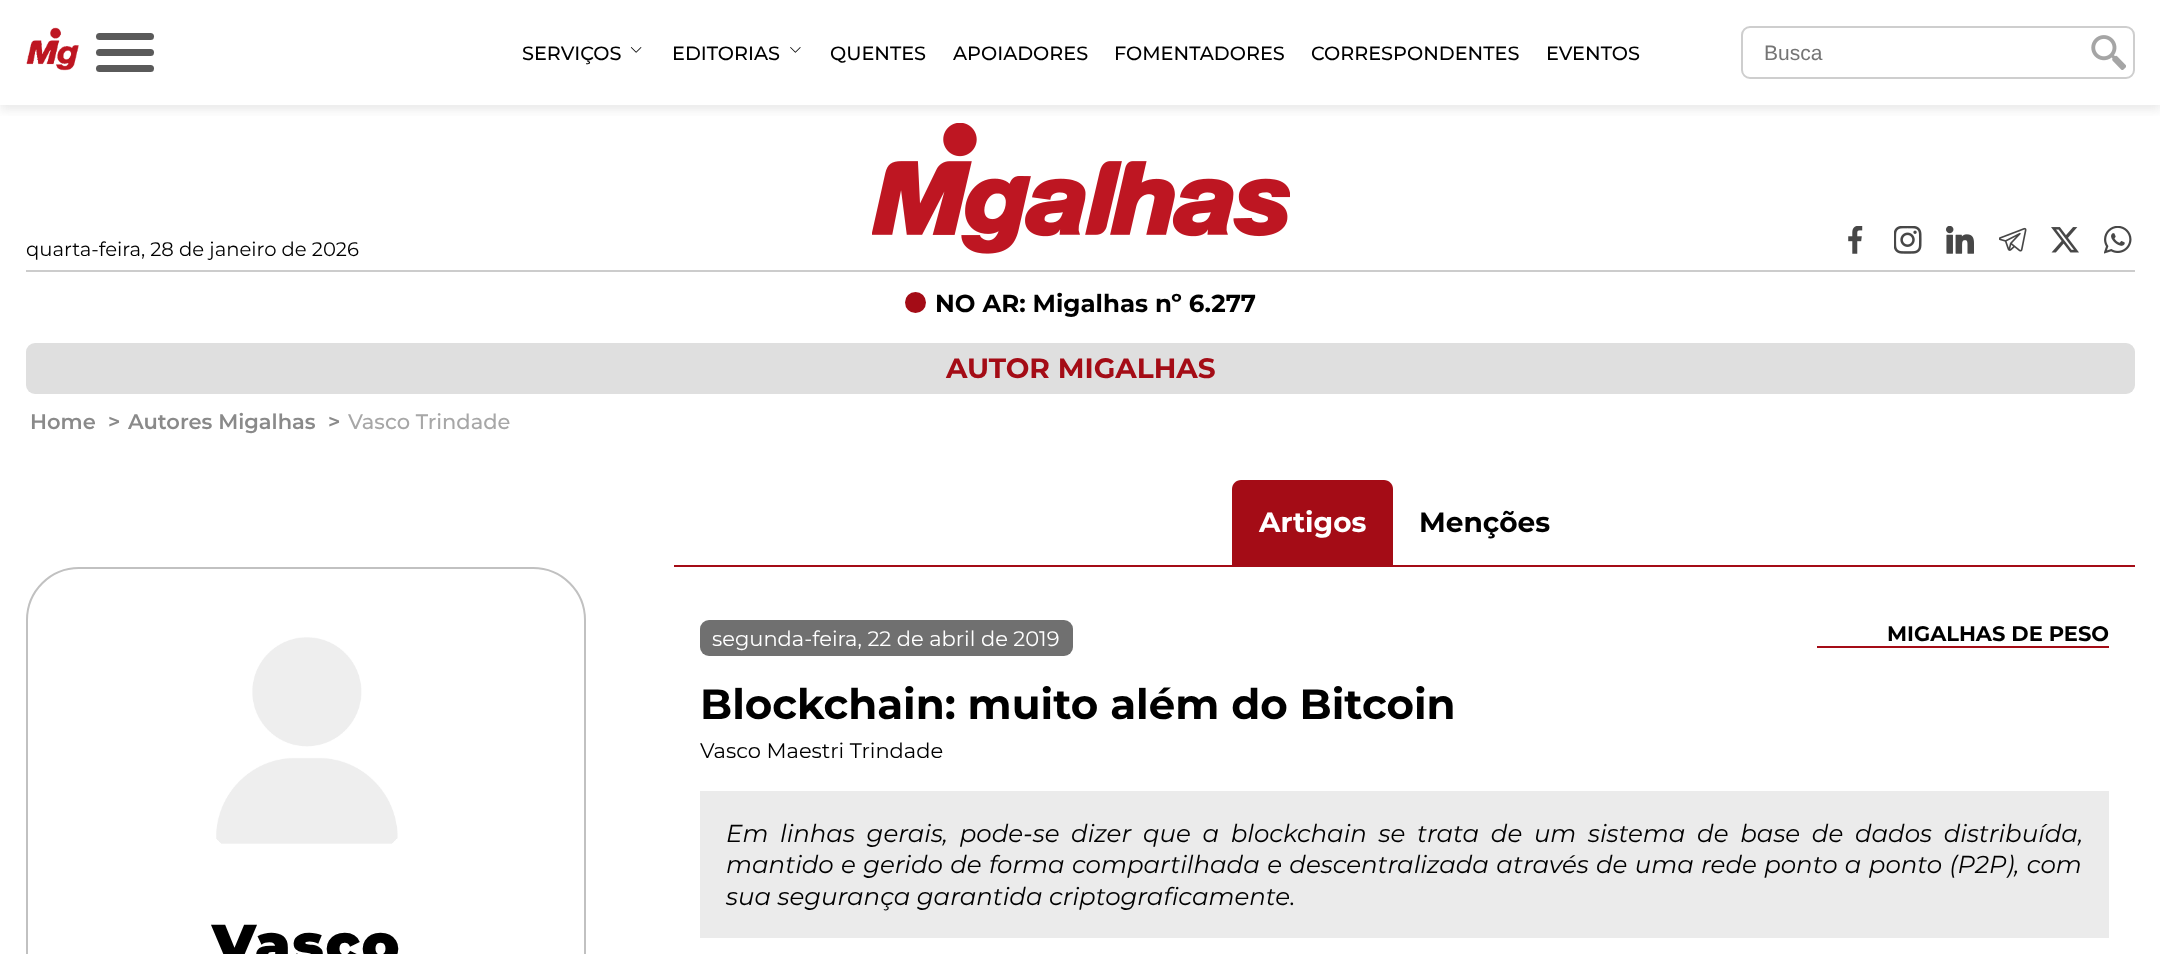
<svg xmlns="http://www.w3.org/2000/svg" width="2160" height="954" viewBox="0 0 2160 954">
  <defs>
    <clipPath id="clip1"><rect x="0" y="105" width="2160" height="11"/></clipPath>
  </defs>
  <rect width="100%" height="100%" fill="rgb(255,255,255)"/>
  <image x="872" y="123" width="418" height="131" href="pic5.png"/>
  <g clip-path="url(#clip1)">
    <rect x="0" y="5" width="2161" height="105" fill="rgba(122,122,122,0.16)" filter="blur(5px)"/>
  </g>
  <image x="26" y="27" width="53" height="44" href="pic1.png"/>
  <rect x="96" y="33" width="58" height="7" rx="3.5" fill="rgb(90,90,90)"/>
  <rect x="96" y="49" width="58" height="7" rx="3.5" fill="rgb(90,90,90)"/>
  <rect x="96" y="65" width="58" height="7" rx="3.5" fill="rgb(90,90,90)"/>
  <text x="522" y="60" font-family="Montserrat" font-size="19.25" font-weight="500" fill="rgb(0,0,0)">SERVIÇOS</text>
  <image x="630" y="47" width="12" height="6" href="pic2.png"/>
  <text x="672" y="60" font-family="Montserrat" font-size="19.25" font-weight="500" fill="rgb(0,0,0)">EDITORIAS</text>
  <image x="790" y="47" width="11" height="6" href="pic3.png"/>
  <g font-family="Montserrat" font-size="19.25" font-weight="500" fill="rgb(0,0,0)">
    <text x="830" y="60">QUENTES</text>
    <text x="953" y="60">APOIADORES</text>
    <text x="1114" y="60">FOMENTADORES</text>
    <text x="1311" y="60">CORRESPONDENTES</text>
    <text x="1546" y="60">EVENTOS</text>
  </g>
  <rect x="1742" y="27" width="392" height="51" rx="8" fill="none" stroke="rgb(206,206,206)" stroke-width="2"/>
  <text x="1764" y="60" font-family="Liberation Sans" font-size="21" fill="rgb(117,117,117)">Busca</text>
  <image x="2091" y="35" width="35" height="35" href="pic4.png"/>
  <rect x="26" y="270" width="2109" height="2" fill="rgb(204,204,204)"/>
  <text x="26" y="256" font-family="Montserrat" font-size="19.6" fill="rgb(0,0,0)">quarta-feira, 28 de janeiro de 2026</text>
  <image x="1848" y="226" width="15" height="28" href="pic6.png"/>
  <image x="1894" y="226" width="28" height="28" href="pic7.png"/>
  <image x="1946" y="226" width="28" height="28" href="pic8.png"/>
  <image x="1999" y="227" width="28" height="25" href="pic9.png"/>
  <image x="2051" y="227" width="28" height="26" href="pic10.png"/>
  <image x="2104" y="226" width="28" height="28" href="pic11.png"/>
  <circle cx="915.5" cy="302.5" r="10.5" fill="rgb(164,12,22)"/>
  <text x="935" y="312" font-family="Montserrat" font-size="24.5" font-weight="bold" fill="rgb(0,0,0)">NO AR: Migalhas nº 6.277</text>
  <rect x="26" y="343" width="2109" height="51" rx="9" fill="rgb(223,223,223)"/>
  <text x="946" y="378" font-family="Montserrat" font-size="28" font-weight="bold" fill="rgb(164,12,22)">AUTOR MIGALHAS</text>
  <g font-family="Montserrat" font-size="21" font-weight="600" fill="rgb(138,138,138)">
    <text x="30" y="429">Home</text>
    <text x="108" y="429">&gt;</text>
    <text x="128" y="429">Autores Migalhas</text>
    <text x="328" y="429">&gt;</text>
  </g>
  <text x="348" y="429" font-family="Montserrat" font-size="21" font-weight="500" fill="rgb(167,167,167)">Vasco Trindade</text>
  <rect x="674" y="565" width="1461" height="2" fill="rgb(164,12,22)"/>
  <path d="M1241 480H1384C1389 480 1393 484 1393 489V565H1232V489C1232 484 1236 480 1241 480Z" fill="rgb(164,12,22)"/>
  <text x="1259" y="532" font-family="Montserrat" font-size="28" font-weight="bold" fill="rgb(255,255,255)">Artigos</text>
  <text x="1419" y="532" font-family="Montserrat" font-size="28" font-weight="bold" fill="rgb(0,0,0)">Menções</text>
  <rect x="1817" y="646" width="292" height="2" fill="rgb(164,12,22)"/>
  <text x="1887" y="641" font-family="Montserrat" font-size="21" font-weight="bold" fill="rgb(0,0,0)">MIGALHAS DE PESO</text>
  <rect x="700" y="620" width="373" height="36" rx="9" fill="rgb(112,112,112)"/>
  <text x="712" y="646" font-family="Montserrat" font-size="21" fill="rgb(255,255,255)">segunda-feira, 22 de abril de 2019</text>
  <text x="700" y="719" font-family="Montserrat" font-size="42" font-weight="bold" fill="rgb(0,0,0)">Blockchain: muito além do Bitcoin</text>
  <text x="700" y="758" font-family="Montserrat" font-size="21" fill="rgb(0,0,0)">Vasco Maestri Trindade</text>
  <rect x="700" y="791" width="1409" height="147" fill="rgb(235,235,235)"/>
  <g font-family="Montserrat" font-size="24.5" font-style="italic" fill="rgb(0,0,0)">
    <text>
      <tspan x="726" y="842" word-spacing="5.25">Em linhas gerais, pode-se dizer que a blockchain se trata de um sistema de base de dados distribuída,</tspan>
      <tspan x="726" y="873" word-spacing="0.9">mantido e gerido de forma compartilhada e descentralizada através de uma rede ponto a ponto (P2P), com</tspan>
      <tspan x="726" y="905">sua segurança garantida criptograficamente.</tspan>
    </text>
  </g>
  <rect x="27" y="568" width="558" height="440" rx="52" fill="none" stroke="rgb(193,193,193)" stroke-width="2"/>
  <image x="216" y="637" width="182" height="207" href="pic12.png"/>
  <text x="212" y="964" font-family="Montserrat" font-size="56" font-weight="900" letter-spacing="1.75" fill="rgb(0,0,0)">Vasco</text>
</svg>
